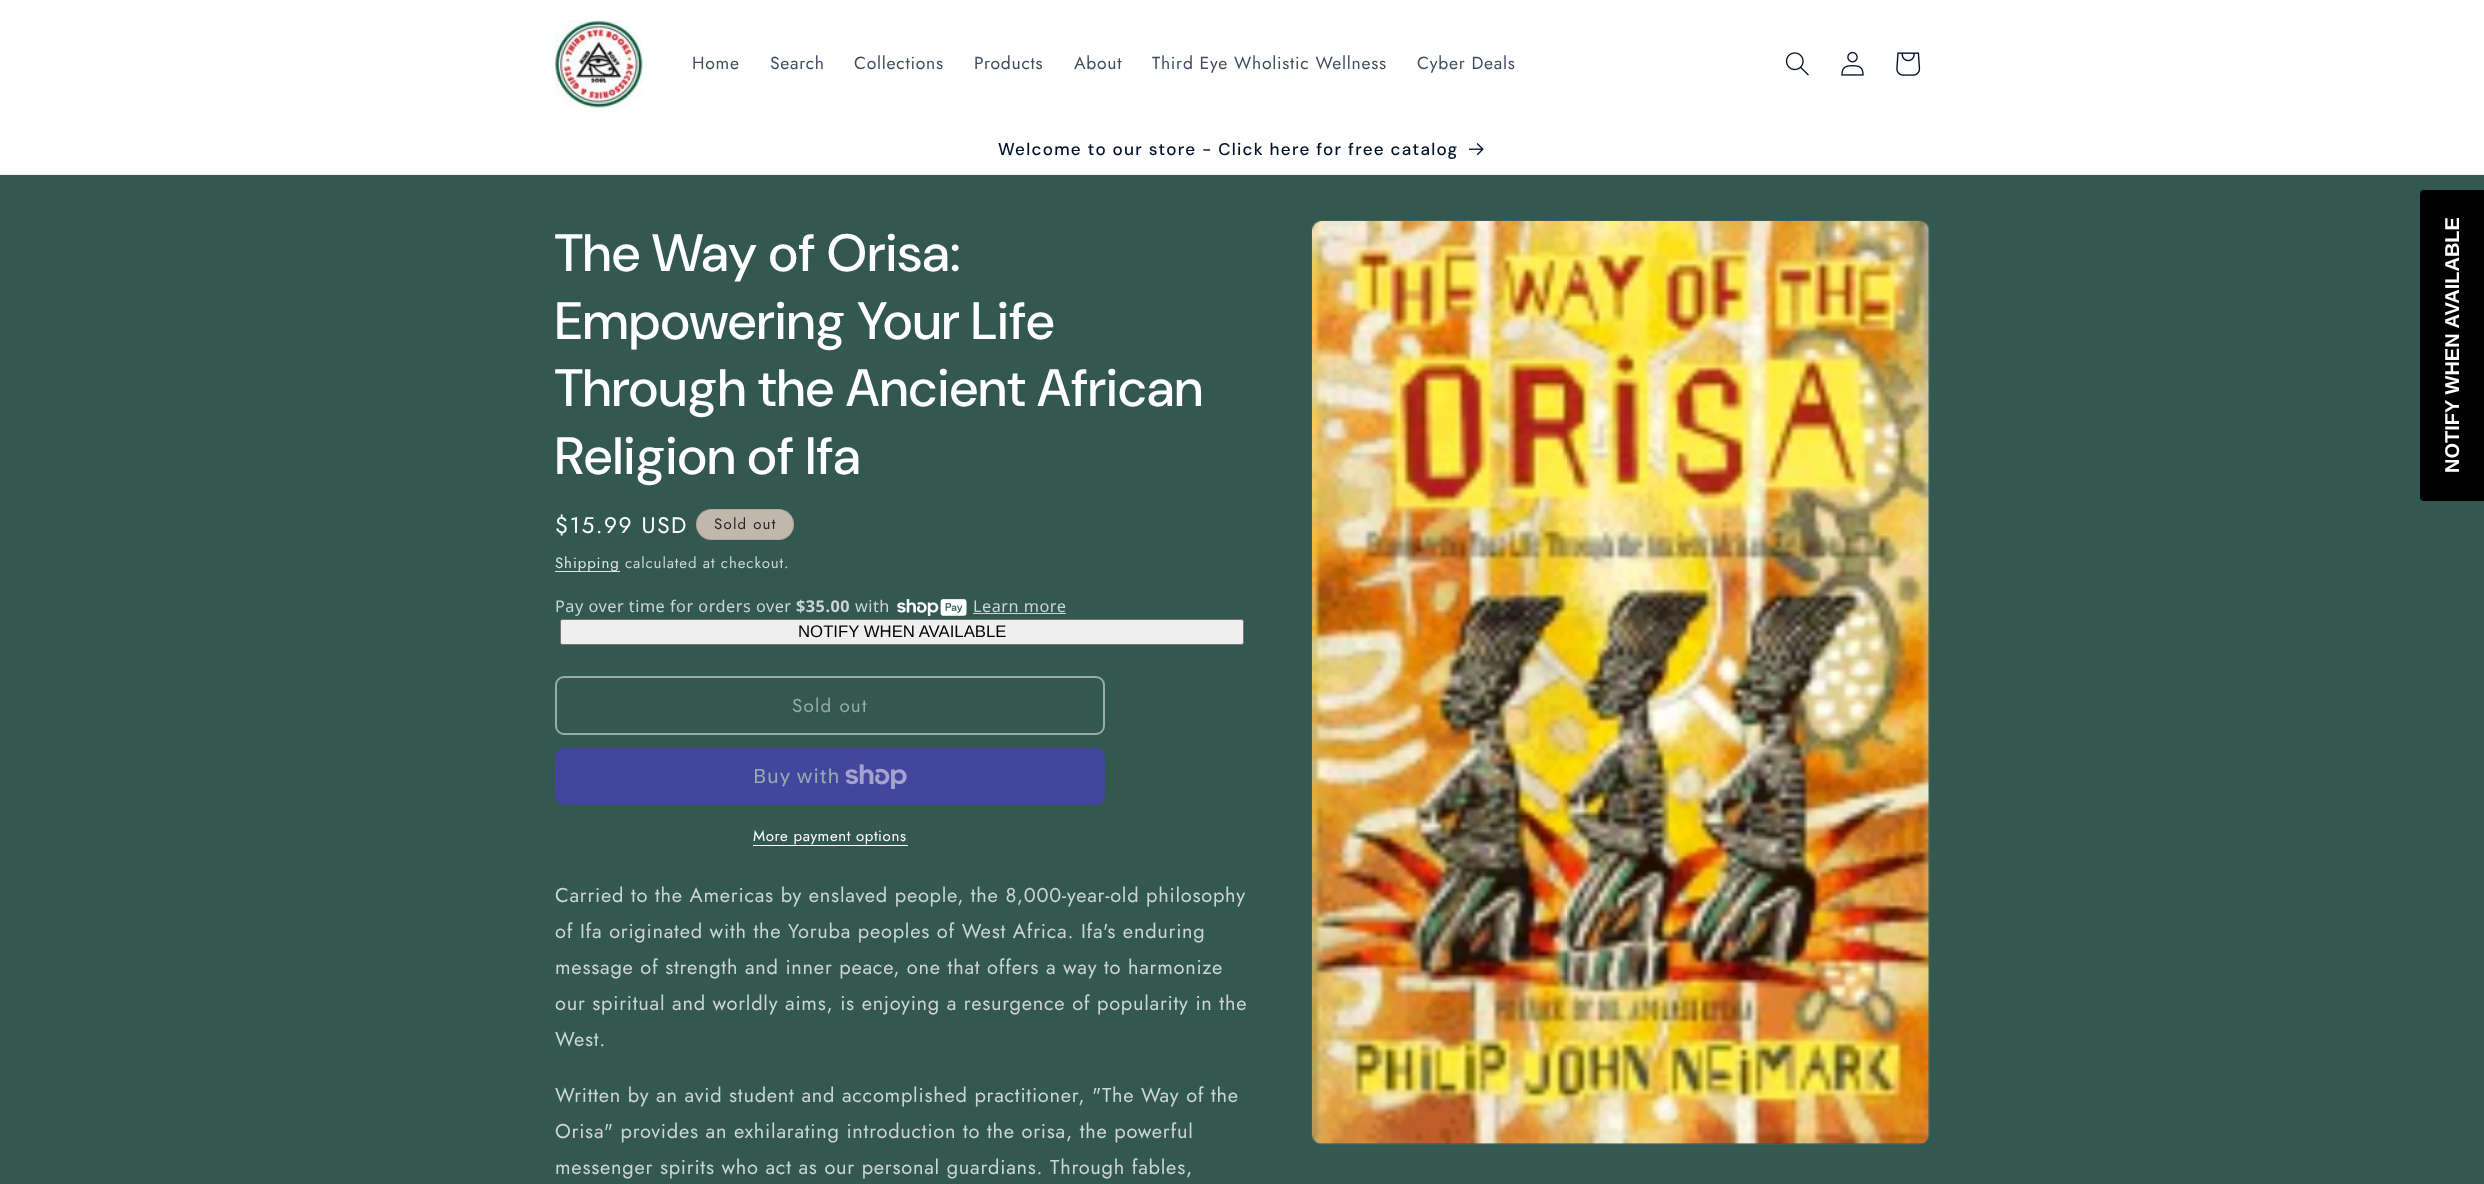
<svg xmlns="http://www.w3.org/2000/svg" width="2484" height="1184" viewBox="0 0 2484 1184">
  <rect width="100%" height="100%" fill="rgb(51,88,80)"/>
  <rect x="0" y="0" width="2484" height="174" fill="rgb(255,255,255)"/>
  <image x="555" y="20" width="88" height="88" href="pic1.png"/>
  <g font-family="Jost" font-size="17.5" letter-spacing="0.75" fill="rgb(64,77,94)">
    <text x="692" y="69">Home</text>
    <text x="770" y="69">Search</text>
    <text x="854" y="69">Collections</text>
    <text x="974" y="69">Products</text>
    <text x="1074" y="69">About</text>
    <text x="1152" y="69">Third Eye Wholistic Wellness</text>
    <text x="1417" y="69">Cyber Deals</text>
  </g>
  <image x="1785" y="52" width="24" height="24" href="pic2.png"/>
  <image x="1841" y="51" width="23" height="25" href="pic3.png"/>
  <image x="1896" y="52" width="25" height="24" href="pic4.png"/>
  <rect x="0" y="174" width="2484" height="1" fill="rgb(235,236,238)"/>
  <text x="998" y="155" font-family="DM Sans" font-size="17.05" font-weight="500" letter-spacing="1.25" fill="rgb(0,17,40)">Welcome to our store - Click here for free catalog</text>
  <image x="1469" y="143" width="15" height="13" href="pic5.png"/>
  <g font-family="'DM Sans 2'" font-size="52.5" font-weight="500" letter-spacing="0.8" fill="rgb(255,255,255)">
    <text>
      <tspan x="555" y="271">The Way of Orisa:</tspan>
      <tspan x="555" y="339">Empowering Your Life</tspan>
      <tspan x="555" y="406">Through the Ancient African</tspan>
      <tspan x="555" y="474">Religion of Ifa</tspan>
    </text>
  </g>
  <text x="555" y="533" font-family="Jost" font-size="22.5" letter-spacing="1.6" fill="rgb(255,255,255)">$15.99 USD</text>
  <rect x="696" y="509" width="98" height="31" rx="15.5" fill="rgb(194,183,172)"/>
  <rect x="696.5" y="509.5" width="97" height="30" rx="15" fill="none" stroke="rgba(38,38,38,0.1)"/>
  <text x="714" y="529" font-family="Jost" font-size="15" letter-spacing="1.25" fill="rgb(38,38,38)">Sold out</text>
  <rect x="555" y="571" width="65" height="1" fill="rgb(223,228,227)"/>
  <text x="555" y="568" font-family="Jost" font-size="15" letter-spacing="0.9" fill="rgb(223,229,228)">Shipping</text>
  <text x="625" y="568" font-family="Jost" font-size="15" letter-spacing="0.9" fill="rgb(204,213,211)">calculated at checkout.</text>
  <text x="555" y="612" font-family="Noto Sans" font-size="16.25" letter-spacing="0.5" fill="rgb(204,213,211)">Pay over time for orders over</text>
  <text x="796" y="612" font-family="Noto Sans" font-size="16.25" font-weight="bold" letter-spacing="0.5" fill="rgb(204,213,211)">$35.00</text>
  <text x="855" y="612" font-family="Noto Sans" font-size="16.25" letter-spacing="0.5" fill="rgb(204,213,211)">with</text>
  <image x="897" y="599" width="70" height="17" href="pic6.png"/>
  <text x="973" y="612" font-family="Noto Sans" font-size="16.25" letter-spacing="0.5" fill="rgb(204,213,211)">Learn more</text>
  <rect x="973" y="613" width="93" height="1" fill="rgb(204,213,211)"/>
  <rect x="560.5" y="619.5" width="683" height="25" rx="2" fill="rgb(239,239,239)" stroke="rgb(118,118,118)"/>
  <text x="798" y="637" font-family="Liberation Sans" font-size="16.75" fill="rgb(0,0,0)">NOTIFY WHEN AVAILABLE</text>
  <rect x="556" y="677" width="548" height="57" rx="8" fill="none" stroke="rgb(152,171,167)" stroke-width="2"/>
  <text x="792" y="712" font-family="Jost" font-size="18.75" letter-spacing="1.25" fill="rgb(152,171,167)">Sold out</text>
  <rect x="555" y="748" width="550" height="57" rx="9" fill="rgb(68,70,158)"/>
  <text x="753" y="783" font-family="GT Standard" font-size="20" letter-spacing="0.75" fill="rgb(152,171,167)">Buy with</text>
  <image x="845" y="764" width="62" height="25" href="pic7.png"/>
  <text x="753" y="841" font-family="Jost" font-size="15" letter-spacing="0.6" fill="rgb(255,255,255)">More payment options</text>
  <rect x="753" y="845" width="155" height="1" fill="rgb(255,255,255)"/>
  <g font-family="Jost" font-size="20" letter-spacing="0.75" fill="rgb(204,213,211)">
    <text>
      <tspan x="555" y="902">Carried to the Americas by enslaved people, the 8,000-year-old philosophy</tspan>
      <tspan x="555" y="938">of Ifa originated with the Yoruba peoples of West Africa. Ifa's enduring</tspan>
      <tspan x="555" y="974">message of strength and inner peace, one that offers a way to harmonize</tspan>
      <tspan x="555" y="1010">our spiritual and worldly aims, is enjoying a resurgence of popularity in the</tspan>
      <tspan x="555" y="1046">West.</tspan>
    </text>
    <text>
      <tspan x="555" y="1102">Written by an avid student and accomplished practitioner, "The Way of the</tspan>
      <tspan x="555" y="1138">Orisa" provides an exhilarating introduction to the orisa, the powerful</tspan>
      <tspan x="555" y="1174">messenger spirits who act as our personal guardians. Through fables,</tspan>
    </text>
  </g>
  <rect x="1311.5" y="220.5" width="618" height="924" rx="9.5" fill="none" stroke="rgb(61,96,89)"/>
  <image x="1312" y="221" width="617" height="923" href="pic8.png"/>
  <path d="M2421 497V194C2421 193 2422 191 2424 191H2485V499H2424C2422 499 2421 498 2421 497Z" fill="rgb(0,0,0)"/>
  <path d="M2420 497V194C2420 192 2421 190 2424 190H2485V501H2424C2421 501 2420 499 2420 497ZM2421 497V194C2421 193 2422 191 2424 191H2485V499H2424C2422 499 2421 498 2421 497Z" fill="rgb(0,0,0)" fill-rule="evenodd"/>
  <text x="2459" y="473" transform="rotate(-90 2459 473)" font-family="Liberation Sans" font-size="20" font-weight="bold" fill="rgb(255,255,255)">NOTIFY WHEN AVAILABLE</text>
</svg>
